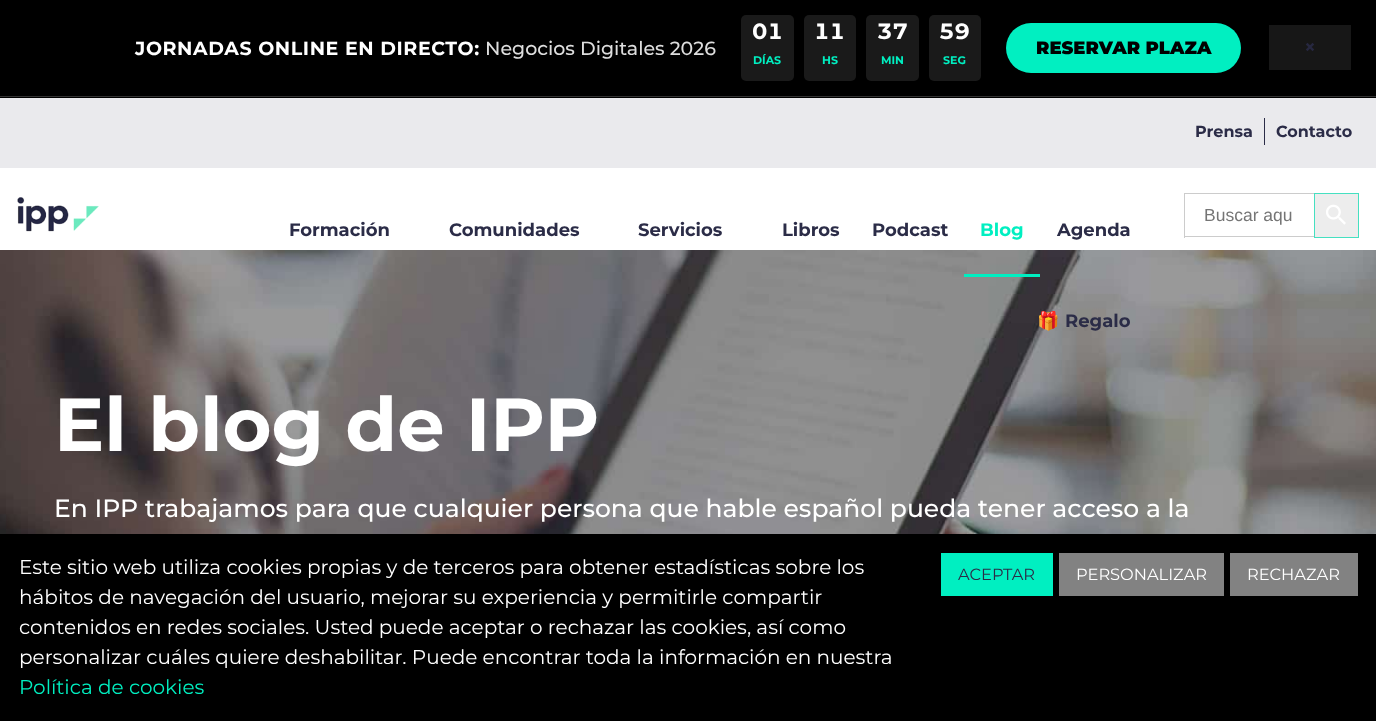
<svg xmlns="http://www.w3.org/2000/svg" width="1376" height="721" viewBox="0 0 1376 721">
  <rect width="100%" height="100%" fill="rgb(255,255,255)"/>
  <rect x="0" y="0" width="1376" height="98" fill="rgb(0,0,0)"/>
  <rect x="0" y="96" width="1376" height="1" fill="rgb(51,51,51)"/>
  <text x="135" y="55" font-family="Montserrat" font-size="19" font-weight="bold" letter-spacing="0.6" fill="rgb(255,255,255)">JORNADAS ONLINE EN DIRECTO:</text>
  <text x="485" y="55" font-family="Montserrat" font-size="19" font-weight="500" fill="rgb(221,221,221)">Negocios Digitales 2026</text>
  <rect x="741" y="15" width="53" height="66" rx="5" fill="rgb(26,26,26)"/>
  <text x="752" y="39" font-family="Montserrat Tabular" font-size="22" font-weight="bold" fill="rgb(255,255,255)">01</text>
  <text x="753" y="64" font-family="Montserrat" font-size="11" font-weight="bold" fill="rgb(0,239,193)">DÍAS</text>
  <rect x="804" y="15" width="52" height="66" rx="5" fill="rgb(26,26,26)"/>
  <text x="814" y="39" font-family="Montserrat Tabular" font-size="22" font-weight="bold" fill="rgb(255,255,255)">11</text>
  <text x="822" y="64" font-family="Montserrat" font-size="11" font-weight="bold" fill="rgb(0,239,193)">HS</text>
  <rect x="866" y="15" width="53" height="66" rx="5" fill="rgb(26,26,26)"/>
  <text x="877" y="39" font-family="Montserrat Tabular" font-size="22" font-weight="bold" fill="rgb(255,255,255)">37</text>
  <text x="881" y="64" font-family="Montserrat" font-size="11" font-weight="bold" fill="rgb(0,239,193)">MIN</text>
  <rect x="929" y="15" width="52" height="66" rx="5" fill="rgb(26,26,26)"/>
  <text x="939" y="39" font-family="Montserrat Tabular" font-size="22" font-weight="bold" fill="rgb(255,255,255)">59</text>
  <text x="943" y="64" font-family="Montserrat" font-size="11" font-weight="bold" fill="rgb(0,239,193)">SEG</text>
  <rect x="1006" y="23" width="235" height="50" rx="25" fill="rgb(1,239,193)"/>
  <text x="1036" y="54" font-family="Montserrat" font-size="18" font-weight="900" fill="rgb(0,0,0)">RESERVAR PLAZA</text>
  <rect x="1269" y="25" width="82" height="45" fill="rgb(23,23,23)"/>
  <text x="1304" y="54" font-family="Montserrat" font-size="20" font-weight="bold" fill="rgb(39,40,64)">×</text>
  <rect x="0" y="98" width="1376" height="70" fill="rgb(234,234,237)"/>
  <text x="1195" y="137" font-family="Montserrat" font-size="16" font-weight="bold" fill="rgb(43,44,71)">Prensa</text>
  <rect x="1264" y="118" width="1" height="27" fill="rgb(43,44,71)"/>
  <text x="1276" y="137" font-family="Montserrat" font-size="16" font-weight="bold" fill="rgb(43,44,71)">Contacto</text>
  <image x="17" y="197" width="82" height="35" href="pic1.png"/>
  <rect x="1184" y="193" width="130" height="1" fill="rgb(204,204,204)"/>
  <rect x="1184" y="236" width="130" height="1" fill="rgb(204,204,204)"/>
  <rect x="1184" y="193" width="1" height="45" fill="rgb(204,204,204)"/>
  <text x="1204" y="221" font-family="Liberation Sans" font-size="17.5" fill="rgb(117,117,117)">Buscar aqu</text>
  <rect x="1314.5" y="193.5" width="44" height="44" fill="rgb(237,237,237)" stroke="rgb(69,224,193)"/>
  <image x="1326" y="204" width="20" height="21" href="pic2.png"/>
  <g font-family="Montserrat" font-size="18" font-weight="bold" fill="rgb(43,44,71)">
    <text x="289" y="236">Formación</text>
    <text x="449" y="236">Comunidades</text>
    <text x="638" y="236">Servicios</text>
    <text x="782" y="236">Libros</text>
    <text x="872" y="236">Podcast</text>
  </g>
  <text x="980" y="236" font-family="Montserrat" font-size="18" font-weight="bold" fill="rgb(0,239,193)">Blog</text>
  <image x="0" y="250" width="1376" height="284" href="pic3.png"/>
  <rect x="964" y="274" width="76" height="3" fill="rgb(0,239,193)"/>
  <text x="1057" y="236" font-family="Montserrat" font-size="18" font-weight="bold" fill="rgb(43,44,71)">Agenda</text>
  <text x="1037" y="327" font-family="Noto Color Emoji" font-size="18" font-weight="bold" fill="rgb(43,44,71)">🎁</text>
  <text x="1065" y="327" font-family="Montserrat" font-size="18" font-weight="bold" fill="rgb(43,44,71)">Regalo</text>
  <text x="54" y="451" font-family="Montserrat" font-size="75" font-weight="bold" fill="rgb(255,255,255)">El blog de IPP</text>
  <text x="54" y="517" font-family="Montserrat" font-size="25" font-weight="500" fill="rgb(255,255,255)">En IPP trabajamos para que cualquier persona que hable español pueda tener acceso a la</text>
  <rect x="0" y="534" width="1376" height="187" fill="rgb(0,0,0)"/>
  <g font-family="Montserrat" font-size="20" fill="rgb(255,255,255)">
    <text>
      <tspan x="19" y="574">Este sitio web utiliza cookies propias y de terceros para obtener estadísticas sobre los</tspan>
      <tspan x="19" y="604">hábitos de navegación del usuario, mejorar su experiencia y permitirle compartir</tspan>
      <tspan x="19" y="634">contenidos en redes sociales. Usted puede aceptar o rechazar las cookies, así como</tspan>
      <tspan x="19" y="664">personalizar cuáles quiere deshabilitar. Puede encontrar toda la información en nuestra</tspan>
    </text>
  </g>
  <text x="19" y="694" font-family="Montserrat" font-size="20" fill="rgb(0,239,193)">Política de cookies</text>
  <rect x="941" y="553" width="112" height="43" fill="rgb(0,239,193)"/>
  <text x="958" y="580" font-family="Montserrat" font-size="16.25" fill="rgb(43,44,71)">ACEPTAR</text>
  <rect x="1059" y="553" width="165" height="43" fill="rgb(130,130,130)"/>
  <text x="1076" y="580" font-family="Montserrat" font-size="16.25" fill="rgb(255,255,255)">PERSONALIZAR</text>
  <rect x="1230" y="553" width="128" height="43" fill="rgb(130,130,130)"/>
  <text x="1247" y="580" font-family="Montserrat" font-size="16.25" fill="rgb(255,255,255)">RECHAZAR</text>
</svg>
